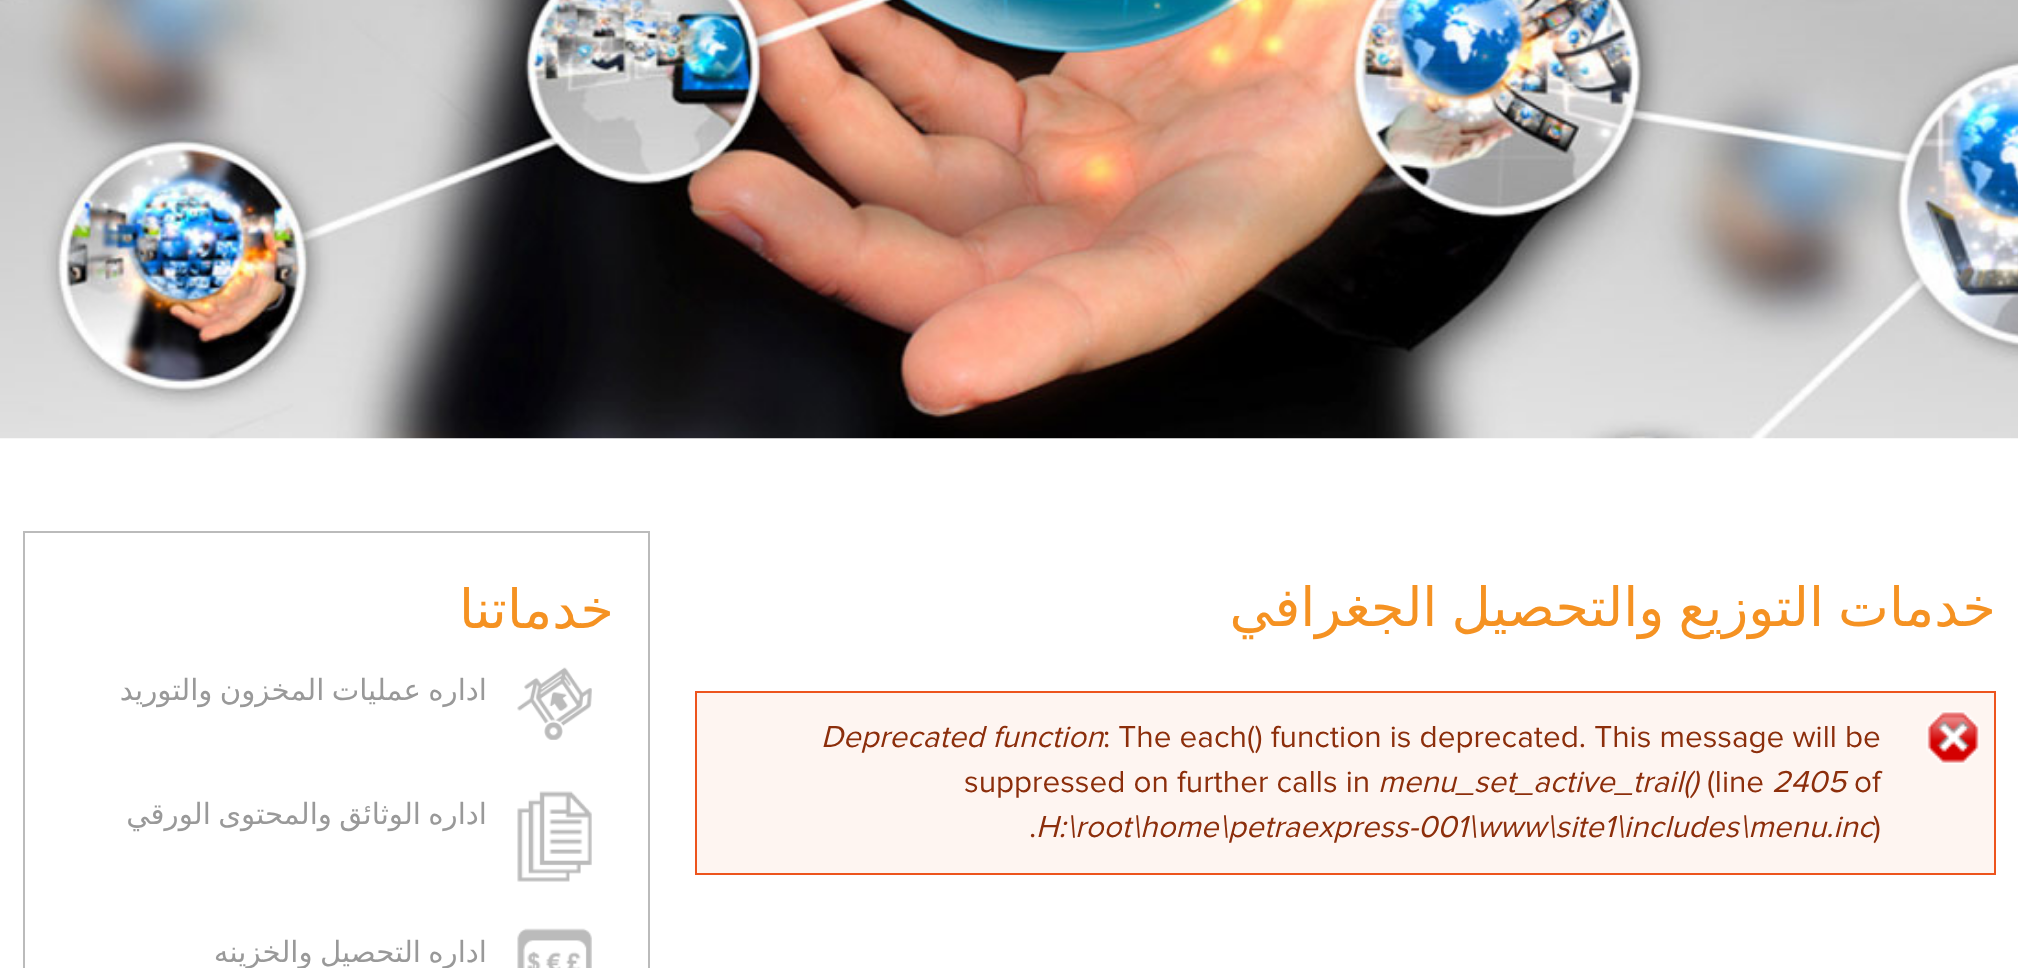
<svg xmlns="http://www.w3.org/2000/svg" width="2018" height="968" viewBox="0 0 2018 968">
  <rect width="100%" height="100%" fill="rgb(255,255,255)"/>
  <image x="0" y="0" width="2018" height="439" href="pic1.png"/>
  <rect x="24" y="532" width="625" height="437" fill="none" stroke="rgb(187,187,187)" stroke-width="2"/>
  <text x="614" y="628" font-family="DejaVu Sans" font-size="54" direction="rtl" fill="rgb(245,146,34)">خدماتنا</text>
  <text x="487" y="700" word-spacing="-2" font-family="DejaVu Sans" font-size="29.25" direction="rtl" fill="rgb(153,153,153)">اداره عمليات المخزون والتوريد</text>
  <image x="517" y="667" width="75" height="73" href="pic2.png"/>
  <text x="487" y="824" word-spacing="-2" font-family="DejaVu Sans" font-size="29.25" direction="rtl" fill="rgb(153,153,153)">اداره الوثائق والمحتوى الورقي</text>
  <image x="517" y="791" width="75" height="91" href="pic3.png"/>
  <text x="487" y="962" word-spacing="-2" font-family="DejaVu Sans" font-size="29.25" direction="rtl" fill="rgb(153,153,153)">اداره التحصيل والخزينه</text>
  <image x="517" y="928" width="75" height="40" href="pic4.png"/>
  <text x="1996" y="626" word-spacing="-3" font-family="DejaVu Sans" font-size="54" direction="rtl" fill="rgb(245,146,34)">خدمات التوزيع والتحصيل الجغرافي</text>
  <rect x="697" y="693" width="1297" height="180" fill="rgb(254,245,241)"/>
  <image x="1926" y="710" width="54" height="55" href="pic5.png"/>
  <rect x="696" y="692" width="1299" height="182" fill="none" stroke="rgb(237,84,29)" stroke-width="2"/>
  <text x="821" y="747" font-family="Proxima Nova" font-size="31.5" font-style="italic" fill="rgb(140,46,11)">Deprecated function</text>
  <g font-family="Proxima Nova" font-size="31.5" fill="rgb(140,46,11)">
    <text x="1103" y="747">: The each() function is deprecated. This message will be</text>
    <text x="964" y="792">suppressed on further calls in</text>
  </g>
  <text x="1378" y="792" font-family="Proxima Nova" font-size="31.5" font-style="italic" fill="rgb(140,46,11)">menu_set_active_trail()</text>
  <text x="1707" y="792" font-family="Proxima Nova" font-size="31.5" fill="rgb(140,46,11)">(line</text>
  <text x="1772" y="792" font-family="Proxima Nova" font-size="31.5" font-style="italic" fill="rgb(140,46,11)">2405</text>
  <g font-family="Proxima Nova" font-size="31.5" fill="rgb(140,46,11)">
    <text x="1854" y="792">of</text>
    <text x="1029" y="837">.</text>
  </g>
  <text x="1036" y="837" font-family="Proxima Nova" font-size="31.5" font-style="italic" fill="rgb(140,46,11)">H:\root\home\petraexpress-001\www\site1\includes\menu.inc</text>
  <text x="1873" y="837" font-family="Proxima Nova" font-size="31.5" fill="rgb(140,46,11)">)</text>
</svg>
